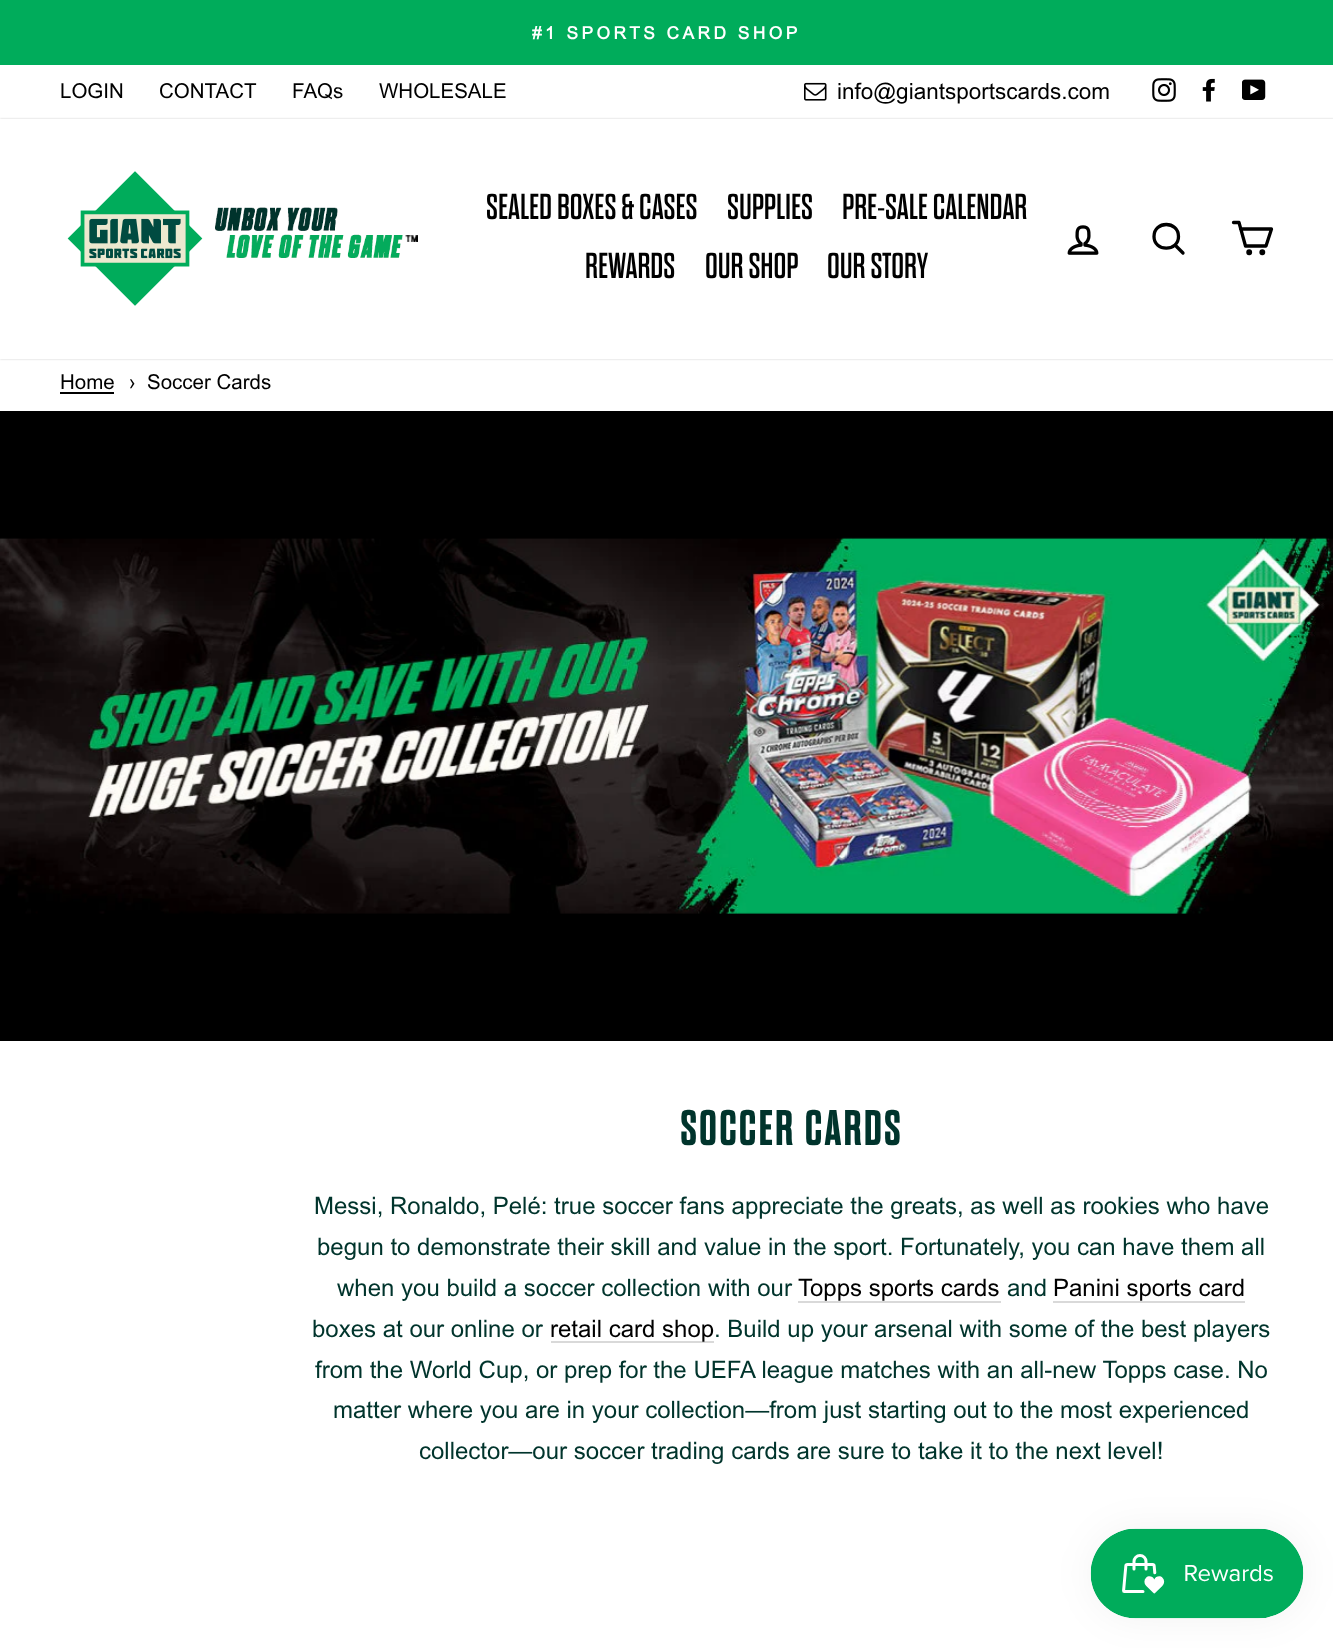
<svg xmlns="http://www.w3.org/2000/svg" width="1333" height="1648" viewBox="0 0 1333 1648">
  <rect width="100%" height="100%" fill="rgb(255,255,255)"/>
  <rect x="0" y="0" width="1333" height="65" fill="rgb(0,172,91)"/>
  <text x="532" y="39" font-family="Arial" font-size="17.3" font-weight="bold" letter-spacing="3.5" fill="rgb(255,255,255)">#1 SPORTS CARD SHOP</text>
  <g font-family="Arial" font-size="20.5" fill="rgb(0,0,0)">
    <text x="60" y="98">LOGIN</text>
    <text x="159" y="98">CONTACT</text>
    <text x="292" y="98">FAQs</text>
    <text x="379" y="98">WHOLESALE</text>
  </g>
  <image x="804" y="82" width="23" height="19" href="pic1.png"/>
  <text x="837" y="99" font-family="Arial" font-size="22.5" fill="rgb(0,0,0)">info@giantsportscards.com</text>
  <image x="1152" y="78" width="24" height="24" href="pic2.png"/>
  <image x="1202" y="78" width="13" height="24" href="pic3.png"/>
  <image x="1242" y="79" width="24" height="21" href="pic4.png"/>
  <rect x="0" y="119" width="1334" height="240" fill="rgba(0,0,0,0.2)" filter="blur(1px)"/>
  <rect x="0" y="119" width="1333" height="240" fill="rgb(255,255,255)"/>
  <image x="67" y="171" width="136" height="135" href="pic5.png"/>
  <image x="215" y="207" width="203" height="51" href="pic6.png"/>
  <g font-family="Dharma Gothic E" font-size="36" fill="rgb(0,0,0)">
    <text x="486" y="219">SEALED BOXES &amp; CASES</text>
    <text x="727" y="219">SUPPLIES</text>
    <text x="842" y="219">PRE-SALE CALENDAR</text>
    <text x="585" y="278">REWARDS</text>
    <text x="705" y="278">OUR SHOP</text>
    <text x="827" y="278">OUR STORY</text>
  </g>
  <image x="1067" y="225" width="32" height="30" href="pic7.png"/>
  <path d="M1178.5 236.5C1178.5 252 1154 252 1154 236.5C1154 220.5 1178.5 220.5 1178.5 236.5ZM1183 253L1175 245" fill="none" stroke="rgb(0,0,0)" stroke-width="3.3" stroke-linecap="round" stroke-linejoin="round"/>
  <path d="M1240.5 229H1271.5L1266 246H1245.5L1239 222.5H1233.5" fill="none" stroke="rgb(0,0,0)" stroke-width="3.3" stroke-linecap="round" stroke-linejoin="round"/>
  <circle cx="1249.2" cy="252.3" r="1.3" fill="rgb(0,0,0)" stroke="rgb(0,0,0)" stroke-width="3.3"/>
  <circle cx="1262.3" cy="252.3" r="1.3" fill="rgb(0,0,0)" stroke="rgb(0,0,0)" stroke-width="3.3"/>
  <text x="60" y="389" font-family="Arial" font-size="20.5" fill="rgb(0,0,0)">Home</text>
  <rect x="60" y="392" width="54" height="2" fill="rgb(0,0,0)"/>
  <g font-family="Arial" font-size="20.5" fill="rgb(0,0,0)">
    <text x="129" y="389">›</text>
    <text x="147" y="389">Soccer Cards</text>
  </g>
  <rect x="0" y="411" width="1333" height="630" fill="rgb(0,0,0)"/>
  <image x="0" y="537" width="1333" height="377" href="pic8.png"/>
  <text x="680" y="1145" font-family="Dharma Gothic E" font-size="48" font-weight="bold" letter-spacing="3" fill="rgb(0,52,44)">SOCCER CARDS</text>
  <g font-family="Arial" font-size="24" fill="rgb(0,52,44)">
    <text x="314" y="1214">Messi, Ronaldo, Pelé: true soccer fans appreciate the greats, as well as rookies who have</text>
    <text x="317" y="1255">begun to demonstrate their skill and value in the sport. Fortunately, you can have them all</text>
    <text x="337" y="1296">when you build a soccer collection with our</text>
  </g>
  <text x="798" y="1296" font-family="Arial" font-size="24" fill="rgb(0,0,0)">Topps sports cards</text>
  <rect x="798" y="1301" width="203" height="2" fill="rgb(217,217,217)"/>
  <text x="1007" y="1296" font-family="Arial" font-size="24" fill="rgb(0,52,44)">and</text>
  <text x="1053" y="1296" font-family="Arial" font-size="24" fill="rgb(0,0,0)">Panini sports card</text>
  <rect x="1053" y="1301" width="192" height="2" fill="rgb(217,217,217)"/>
  <text x="312" y="1337" font-family="Arial" font-size="24" fill="rgb(0,52,44)">boxes at our online or</text>
  <rect x="551" y="1341" width="163" height="2" fill="rgb(217,217,217)"/>
  <text x="550" y="1337" font-family="Arial" font-size="24" fill="rgb(0,0,0)">retail card shop</text>
  <g font-family="Arial" font-size="24" fill="rgb(0,52,44)">
    <text x="714" y="1337">. Build up your arsenal with some of the best players</text>
    <text x="315" y="1378">from the World Cup, or prep for the UEFA league matches with an all-new Topps case. No</text>
    <text x="333" y="1418">matter where you are in your collection—from just starting out to the most experienced</text>
    <text x="419" y="1459">collector—our soccer trading cards are sure to take it to the next level!</text>
  </g>
  <rect x="1091" y="1529" width="213" height="90" rx="45" fill="rgba(0,0,0,0.05)" filter="blur(19px)"/>
  <image x="1090" y="1528" width="214" height="91" href="pic9.png"/>
</svg>
